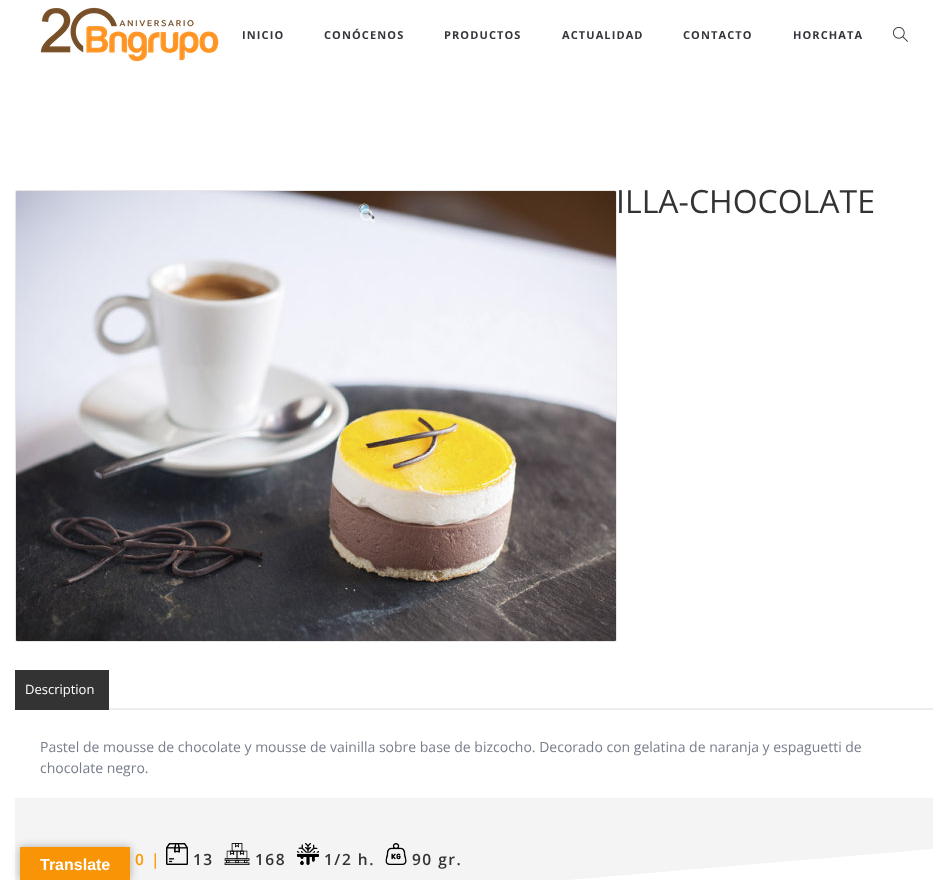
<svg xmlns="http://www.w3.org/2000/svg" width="948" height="880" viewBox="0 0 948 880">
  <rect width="100%" height="100%" fill="rgb(255,255,255)"/>
  <image x="40" y="7" width="179" height="55" href="pic1.png"/>
  <g font-family="Open Sans" font-size="11" font-weight="bold" letter-spacing="1.1" fill="rgb(54,53,60)">
    <text x="242" y="39">INICIO</text>
    <text x="324" y="39">CONÓCENOS</text>
    <text x="444" y="39">PRODUCTOS</text>
    <text x="562" y="39">ACTUALIDAD</text>
    <text x="683" y="39">CONTACTO</text>
    <text x="793" y="39">HORCHATA</text>
  </g>
  <image x="893" y="26" width="15" height="16" href="pic2.png"/>
  <rect x="15.5" y="190.5" width="601" height="451" rx="1.5" fill="none" stroke="rgb(231,231,231)"/>
  <image x="16" y="191" width="600" height="450" href="pic3.png"/>
  <text x="358" y="216" font-family="Noto Color Emoji" font-size="14" fill="rgb(166,163,170)">🔍</text>
  <image x="360" y="208" width="15" height="15" href="pic4.png"/>
  <text x="616" y="213" font-family="Open Sans" font-size="32" fill="rgb(51,51,51)">ILLA-CHOCOLATE</text>
  <rect x="15" y="670" width="94" height="40" fill="rgb(51,51,51)"/>
  <text x="25" y="694" font-family="Open Sans" font-size="13" fill="rgb(255,255,255)">Description</text>
  <rect x="109" y="708" width="824" height="2" fill="rgb(237,237,237)"/>
  <g font-family="Open Sans" font-size="14" fill="rgb(119,125,139)">
    <text>
      <tspan x="40" y="752">Pastel de mousse de chocolate y mousse de vainilla sobre base de bizcocho. Decorado con gelatina de naranja y espaguetti de</tspan>
      <tspan x="40" y="773">chocolate negro.</tspan>
    </text>
  </g>
  <rect x="15" y="798" width="918" height="82" fill="rgb(244,244,244)"/>
  <text x="135" y="865" font-family="Open Sans" font-size="15.5" font-weight="600" letter-spacing="1.5" fill="rgb(255,153,0)">0 |</text>
  <image x="166" y="843" width="22" height="22" href="pic5.png"/>
  <text x="193" y="865" font-family="Open Sans" font-size="15.5" font-weight="600" letter-spacing="1.5" fill="rgb(51,51,51)">13</text>
  <image x="224" y="843" width="26" height="22" href="pic6.png"/>
  <text x="255" y="865" font-family="Open Sans" font-size="15.5" font-weight="600" letter-spacing="1.5" fill="rgb(51,51,51)">168</text>
  <image x="297" y="843" width="22" height="22" href="pic7.png"/>
  <text x="324" y="865" font-family="Open Sans" font-size="15.5" font-weight="600" letter-spacing="1.5" fill="rgb(51,51,51)">1/2 h.</text>
  <image x="385" y="843" width="22" height="22" href="pic8.png"/>
  <text x="412" y="865" font-family="Open Sans" font-size="15.5" font-weight="600" letter-spacing="1.5" fill="rgb(51,51,51)">90 gr.</text>
  <path d="M15 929V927L933 849V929Z" fill="rgb(255,255,255)"/>
  <rect x="20" y="847" width="110" height="33" fill="rgba(0,0,0,0.3)" filter="blur(4.5px)"/>
  <rect x="20" y="847" width="110" height="33" fill="rgb(248,148,6)"/>
  <text x="40" y="870" font-family="Liberation Sans" font-size="16" font-weight="bold" fill="rgb(255,255,255)">Translate</text>
</svg>
